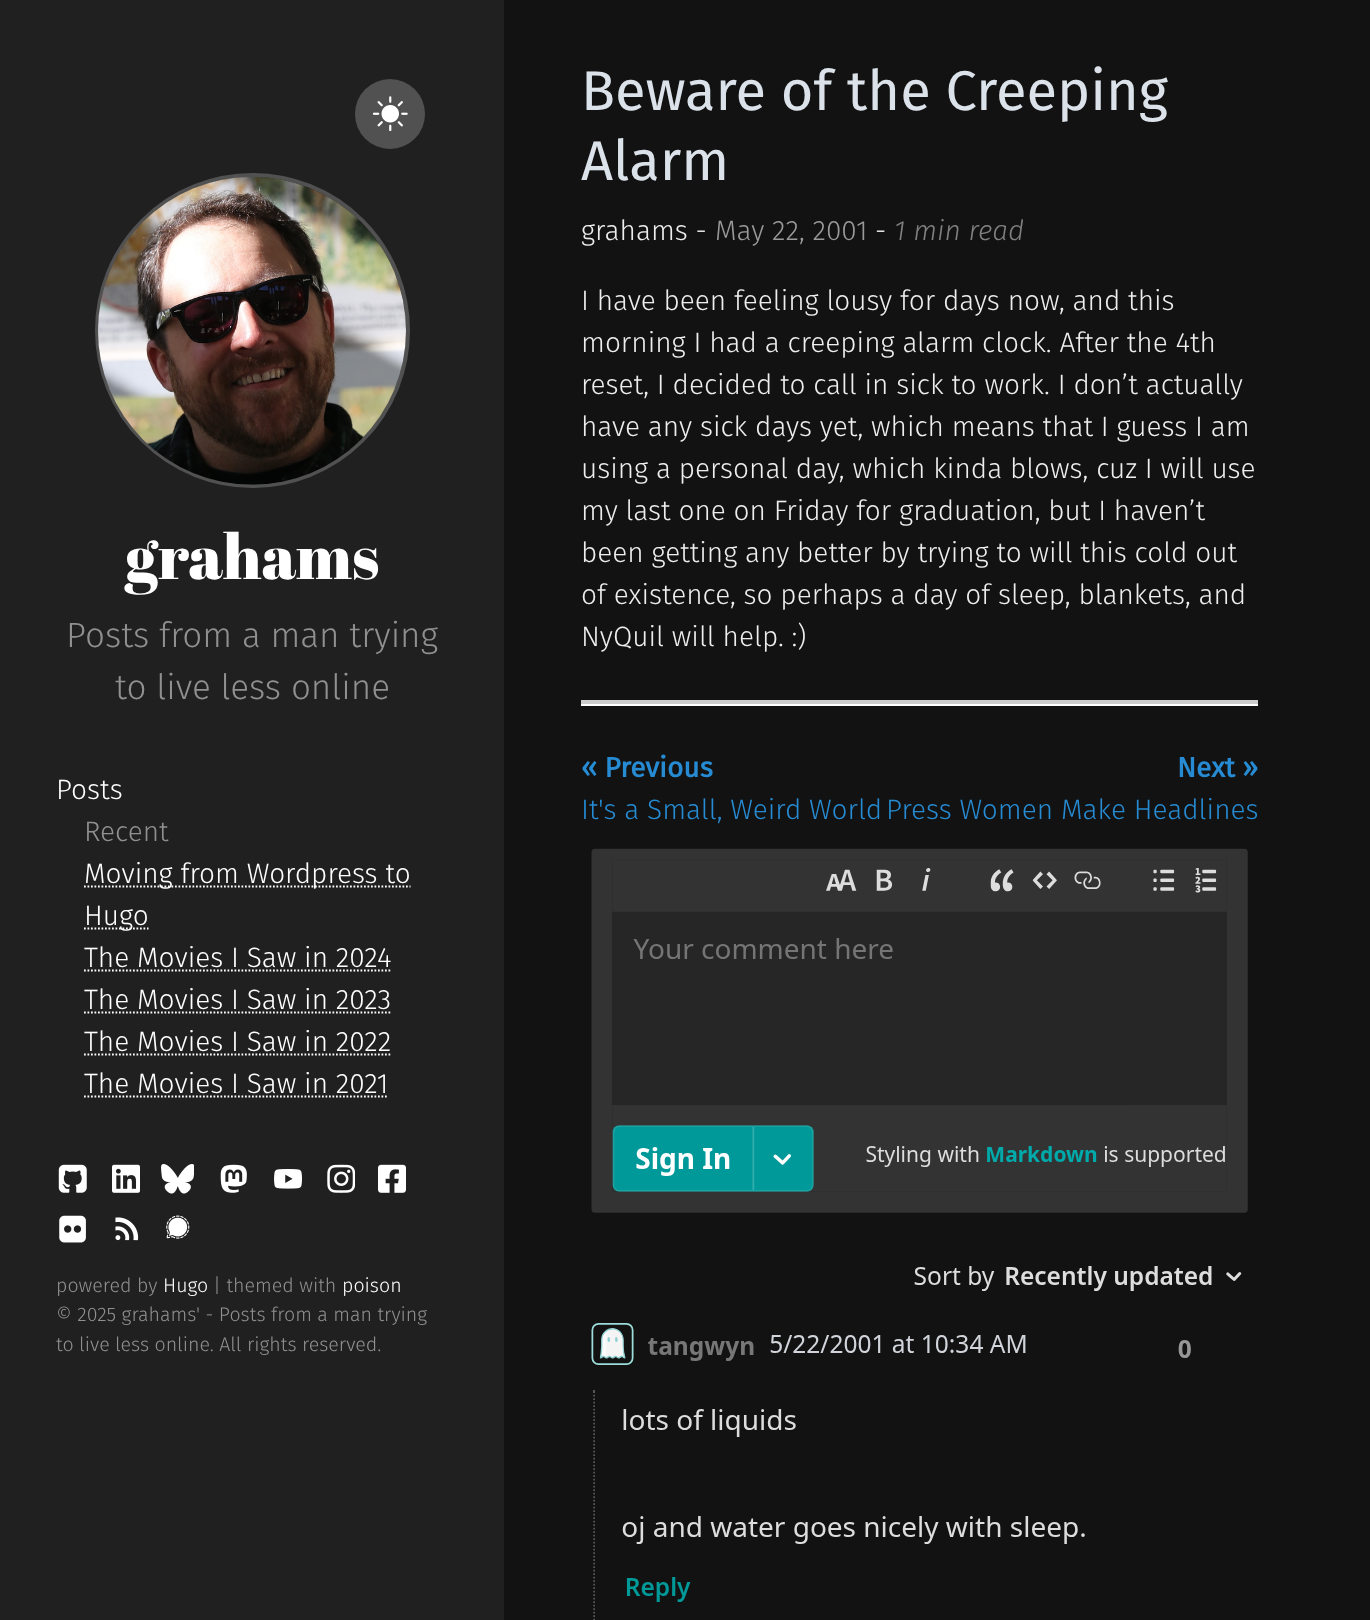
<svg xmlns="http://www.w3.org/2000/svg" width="1370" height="1620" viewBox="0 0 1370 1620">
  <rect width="100%" height="100%" fill="rgb(18,18,18)"/>
  <g font-family="Fira Sans" font-size="56" fill="rgb(219,226,233)">
    <text>
      <tspan x="581" y="110">Beware of the Creeping</tspan>
      <tspan x="581" y="180">Alarm</tspan>
    </text>
  </g>
  <text x="581" y="240" font-family="Fira Sans" font-size="28" font-weight="300" fill="rgb(238,238,238)">grahams -</text>
  <text x="715" y="240" font-family="Fira Sans" font-size="28" font-weight="300" fill="rgb(154,154,154)">May 22, 2001</text>
  <text x="875" y="240" font-family="Fira Sans" font-size="28" font-weight="300" fill="rgb(238,238,238)">-</text>
  <text x="894" y="240" font-family="Fira Sans" font-size="28" font-weight="300" font-style="italic" fill="rgb(128,128,128)">1 min read</text>
  <g font-family="Fira Sans" font-size="28" font-weight="300" fill="rgb(238,238,238)">
    <text>
      <tspan x="581" y="310">I have been feeling lousy for days now, and this</tspan>
      <tspan x="581" y="352">morning I had a creeping alarm clock. After the 4th</tspan>
      <tspan x="581" y="394">reset, I decided to call in sick to work. I don’t actually</tspan>
      <tspan x="581" y="436">have any sick days yet, which means that I guess I am</tspan>
      <tspan x="581" y="478">using a personal day, which kinda blows, cuz I will use</tspan>
      <tspan x="581" y="520">my last one on Friday for graduation, but I haven’t</tspan>
      <tspan x="581" y="562">been getting any better by trying to will this cold out</tspan>
      <tspan x="581" y="604">of existence, so perhaps a day of sleep, blankets, and</tspan>
      <tspan x="581" y="646">NyQuil will help. :)</tspan>
    </text>
  </g>
  <rect x="581" y="700" width="677" height="4" fill="rgb(204,204,204)"/>
  <rect x="581" y="704" width="677" height="2" fill="rgb(255,255,255)"/>
  <text x="581" y="777" font-family="Fira Sans" font-size="28" font-weight="bold" fill="rgb(38,139,210)">« Previous</text>
  <text x="581" y="819" font-family="Fira Sans" font-size="28" font-weight="300" fill="rgb(38,139,210)">It's a Small, Weird World</text>
  <text x="1177" y="777" font-family="Fira Sans" font-size="28" font-weight="bold" fill="rgb(38,139,210)">Next »</text>
  <text x="886" y="819" font-family="Fira Sans" font-size="28" font-weight="300" fill="rgb(38,139,210)">Press Women Make Headlines</text>
  <image x="591" y="848" width="657" height="772" href="pic1.png"/>
  <rect x="0" y="0" width="504" height="1620" fill="rgb(32,32,32)"/>
  <circle cx="390" cy="114" r="35" fill="rgb(81,81,81)"/>
  <image x="373" y="96" width="35" height="35" href="pic2.png"/>
  <circle cx="252.5" cy="330.5" r="155.5" fill="none" stroke="rgb(81,81,81)" stroke-width="4"/>
  <image x="98" y="177" width="308" height="308" href="pic3.png"/>
  <text x="125" y="579" font-family="Abril Fatface" font-size="63" fill="rgb(255,255,255)">grahams</text>
  <g font-family="Fira Sans" font-size="35" font-weight="300" fill="rgb(144,144,144)">
    <text x="66" y="647">Posts from a man trying</text>
    <text x="115" y="699">to live less online</text>
  </g>
  <text x="56" y="799" font-family="Fira Sans" font-size="28" font-weight="300" fill="rgb(255,255,255)">Posts</text>
  <text x="84" y="841" font-family="Fira Sans" font-size="28" font-weight="300" fill="rgb(144,144,144)">Recent</text>
  <path d="M84 886.5H410.5" fill="none" stroke="rgb(255,255,255)" stroke-width="1.8" stroke-dasharray="1.75 1.75"/>
  <text x="84" y="883" font-family="Fira Sans" font-size="28" font-weight="300" fill="rgb(255,255,255)">Moving from Wordpress to</text>
  <path d="M84 928.5H148.5" fill="none" stroke="rgb(255,255,255)" stroke-width="1.8" stroke-dasharray="1.75 1.75"/>
  <g font-family="Fira Sans" font-size="28" font-weight="300" fill="rgb(255,255,255)">
    <text>
      <tspan x="84" y="925">Hugo</tspan>
      <tspan x="84" y="967">The Movies I Saw in 2024</tspan>
    </text>
  </g>
  <path d="M84 970.5H391.5" fill="none" stroke="rgb(255,255,255)" stroke-width="1.8" stroke-dasharray="1.75 1.75"/>
  <text x="84" y="1009" font-family="Fira Sans" font-size="28" font-weight="300" fill="rgb(255,255,255)">The Movies I Saw in 2023</text>
  <path d="M84 1012.5H391" fill="none" stroke="rgb(255,255,255)" stroke-width="1.8" stroke-dasharray="1.75 1.75"/>
  <text x="84" y="1051" font-family="Fira Sans" font-size="28" font-weight="300" fill="rgb(255,255,255)">The Movies I Saw in 2022</text>
  <path d="M84 1054.5H391" fill="none" stroke="rgb(255,255,255)" stroke-width="1.8" stroke-dasharray="1.75 1.75"/>
  <text x="84" y="1093" font-family="Fira Sans" font-size="28" font-weight="300" fill="rgb(255,255,255)">The Movies I Saw in 2021</text>
  <path d="M84 1096.5H388.5" fill="none" stroke="rgb(255,255,255)" stroke-width="1.8" stroke-dasharray="1.75 1.75"/>
  <image x="58" y="1164" width="29" height="29" href="pic4.png"/>
  <image x="112" y="1164" width="28" height="29" href="pic5.png"/>
  <image x="161" y="1164" width="33" height="30" href="pic6.png"/>
  <image x="220" y="1164" width="27" height="29" href="pic7.png"/>
  <image x="274" y="1169" width="28" height="20" href="pic8.png"/>
  <image x="327" y="1164" width="28" height="29" href="pic9.png"/>
  <image x="378" y="1164" width="28" height="29" href="pic10.png"/>
  <image x="59" y="1215" width="27" height="28" href="pic11.png"/>
  <image x="115" y="1217" width="24" height="24" href="pic12.png"/>
  <image x="166" y="1215" width="24" height="24" href="pic13.png"/>
  <text x="56" y="1292" font-family="Fira Sans" font-size="19.6" font-weight="300" fill="rgb(144,144,144)">powered by</text>
  <text x="163" y="1292" font-family="Fira Sans" font-size="19.6" font-weight="300" fill="rgb(255,255,255)">Hugo</text>
  <text x="213" y="1292" font-family="Fira Sans" font-size="19.6" font-weight="300" fill="rgb(144,144,144)">| themed with</text>
  <text x="342" y="1292" font-family="Fira Sans" font-size="19.6" font-weight="300" fill="rgb(255,255,255)">poison</text>
  <g font-family="Fira Sans" font-size="19.6" font-weight="300" fill="rgb(144,144,144)">
    <text>
      <tspan x="56" y="1321">© 2025 grahams' - Posts from a man trying</tspan>
      <tspan x="56" y="1351">to live less online. All rights reserved.</tspan>
    </text>
  </g>
</svg>
